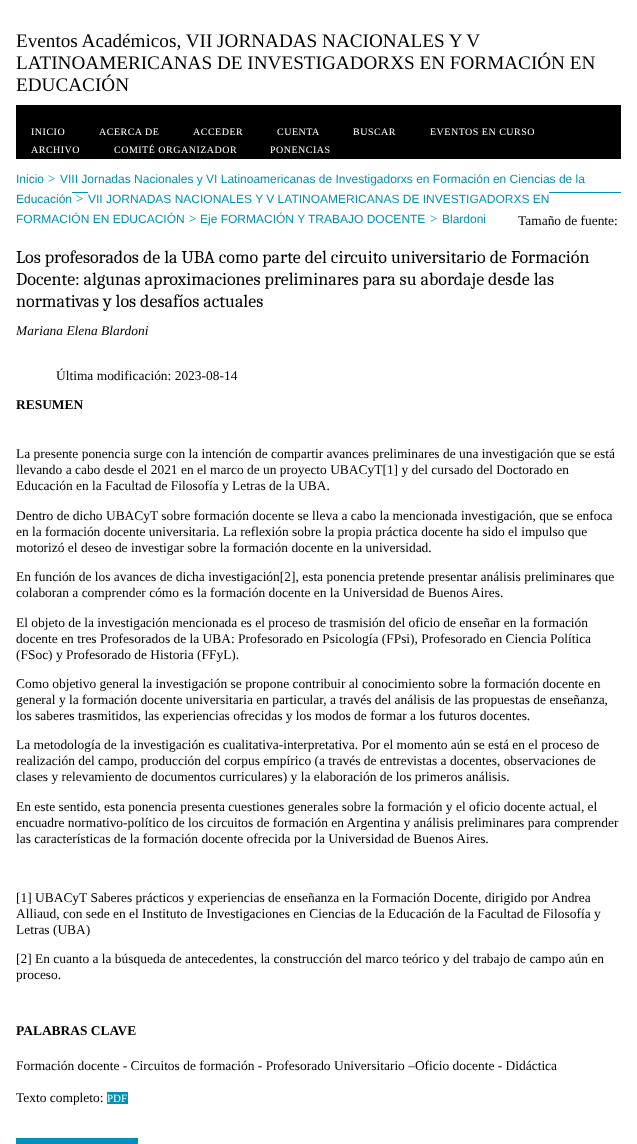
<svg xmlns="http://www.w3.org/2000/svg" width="637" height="1144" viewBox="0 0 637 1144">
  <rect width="100%" height="100%" fill="rgb(255,255,255)"/>
  <g font-family="Liberation Serif" font-size="19.2" fill="rgb(0,0,0)">
    <text>
      <tspan x="16" y="47">Eventos Académicos, VII JORNADAS NACIONALES Y V</tspan>
      <tspan x="16" y="69">LATINOAMERICANAS DE INVESTIGADORXS EN FORMACIÓN EN</tspan>
      <tspan x="16" y="91">EDUCACIÓN</tspan>
    </text>
  </g>
  <rect x="16" y="105" width="605" height="54" fill="rgb(0,0,0)"/>
  <g font-family="Liberation Serif" font-size="10" letter-spacing="0.5" fill="rgb(255,255,255)">
    <text x="31" y="135">INICIO</text>
    <text x="99" y="135">ACERCA DE</text>
    <text x="193" y="135">ACCEDER</text>
    <text x="277" y="135">CUENTA</text>
    <text x="353" y="135">BUSCAR</text>
    <text x="430" y="135">EVENTOS EN CURSO</text>
    <text x="31" y="153">ARCHIVO</text>
    <text x="114" y="153">COMITÉ ORGANIZADOR</text>
    <text x="270" y="153">PONENCIAS</text>
  </g>
  <text x="16" y="183" font-family="Liberation Sans" font-size="12" fill="rgb(0,145,187)">Inicio</text>
  <text x="47" y="183" font-family="Liberation Serif" font-size="13.45" font-style="italic" fill="rgb(0,145,187)">&gt;</text>
  <g font-family="Liberation Sans" font-size="12" fill="rgb(0,145,187)">
    <text x="60" y="183">VIII Jornadas Nacionales y VI Latinoamericanas de Investigadorxs en Formación en Ciencias de la</text>
    <text x="16" y="203">Educación</text>
  </g>
  <text x="75" y="203" font-family="Liberation Serif" font-size="13.45" font-style="italic" fill="rgb(0,145,187)">&gt;</text>
  <text x="88" y="203" font-family="Liberation Sans" font-size="12" fill="rgb(0,145,187)">VII JORNADAS NACIONALES Y V LATINOAMERICANAS DE INVESTIGADORXS EN</text>
  <rect x="72" y="192" width="549" height="1" fill="rgb(0,145,187)"/>
  <rect x="88" y="192" width="461" height="1" fill="rgb(255,255,255)"/>
  <text x="16" y="223" font-family="Liberation Sans" font-size="12" fill="rgb(0,145,187)">FORMACIÓN EN EDUCACIÓN</text>
  <text x="188" y="223" font-family="Liberation Serif" font-size="13.45" font-style="italic" fill="rgb(0,145,187)">&gt;</text>
  <text x="200" y="223" font-family="Liberation Sans" font-size="12" fill="rgb(0,145,187)">Eje FORMACIÓN Y TRABAJO DOCENTE</text>
  <text x="429" y="223" font-family="Liberation Serif" font-size="13.45" font-style="italic" fill="rgb(0,145,187)">&gt;</text>
  <text x="442" y="223" font-family="Liberation Sans" font-size="12" fill="rgb(0,145,187)">Blardoni</text>
  <text x="518" y="225" font-family="Liberation Serif" font-size="13.45" fill="rgb(0,0,0)">Tamaño de fuente:</text>
  <g font-family="Caladea" font-size="18" fill="rgb(0,0,0)">
    <text>
      <tspan x="16" y="263">Los profesorados de la UBA como parte del circuito universitario de Formación</tspan>
      <tspan x="16" y="285">Docente: algunas aproximaciones preliminares para su abordaje desde las</tspan>
      <tspan x="16" y="307">normativas y los desafíos actuales</tspan>
    </text>
  </g>
  <text x="16" y="335" font-family="Liberation Serif" font-size="13.45" font-style="italic" fill="rgb(0,0,0)">Mariana Elena Blardoni</text>
  <text x="56" y="380" font-family="Liberation Serif" font-size="13.45" fill="rgb(0,0,0)">Última modificación: 2023-08-14</text>
  <text x="16" y="409" font-family="Liberation Serif" font-size="13.45" font-weight="bold" fill="rgb(0,0,0)">RESUMEN</text>
  <g font-family="Liberation Serif" font-size="13.45" fill="rgb(0,0,0)">
    <text>
      <tspan x="16" y="458">La presente ponencia surge con la intención de compartir avances preliminares de una investigación que se está</tspan>
      <tspan x="16" y="474">llevando a cabo desde el 2021 en el marco de un proyecto UBACyT[1] y del cursado del Doctorado en</tspan>
      <tspan x="16" y="490">Educación en la Facultad de Filosofía y Letras de la UBA.</tspan>
    </text>
    <text>
      <tspan x="16" y="520">Dentro de dicho UBACyT sobre formación docente se lleva a cabo la mencionada investigación, que se enfoca</tspan>
      <tspan x="16" y="536">en la formación docente universitaria. La reflexión sobre la propia práctica docente ha sido el impulso que</tspan>
      <tspan x="16" y="552">motorizó el deseo de investigar sobre la formación docente en la universidad.</tspan>
    </text>
    <text>
      <tspan x="16" y="581">En función de los avances de dicha investigación[2], esta ponencia pretende presentar análisis preliminares que</tspan>
      <tspan x="16" y="597">colaboran a comprender cómo es la formación docente en la Universidad de Buenos Aires.</tspan>
    </text>
    <text>
      <tspan x="16" y="627">El objeto de la investigación mencionada es el proceso de trasmisión del oficio de enseñar en la formación</tspan>
      <tspan x="16" y="643">docente en tres Profesorados de la UBA: Profesorado en Psicología (FPsi), Profesorado en Ciencia Política</tspan>
      <tspan x="16" y="659">(FSoc) y Profesorado de Historia (FFyL).</tspan>
    </text>
    <text>
      <tspan x="16" y="688">Como objetivo general la investigación se propone contribuir al conocimiento sobre la formación docente en</tspan>
      <tspan x="16" y="704">general y la formación docente universitaria en particular, a través del análisis de las propuestas de enseñanza,</tspan>
      <tspan x="16" y="720">los saberes trasmitidos, las experiencias ofrecidas y los modos de formar a los futuros docentes.</tspan>
    </text>
    <text>
      <tspan x="16" y="749">La metodología de la investigación es cualitativa-interpretativa. Por el momento aún se está en el proceso de</tspan>
      <tspan x="16" y="765">realización del campo, producción del corpus empírico (a través de entrevistas a docentes, observaciones de</tspan>
      <tspan x="16" y="781">clases y relevamiento de documentos curriculares) y la elaboración de los primeros análisis.</tspan>
    </text>
    <text>
      <tspan x="16" y="811">En este sentido, esta ponencia presenta cuestiones generales sobre la formación y el oficio docente actual, el</tspan>
      <tspan x="16" y="827">encuadre normativo-político de los circuitos de formación en Argentina y análisis preliminares para comprender</tspan>
      <tspan x="16" y="843">las características de la formación docente ofrecida por la Universidad de Buenos Aires.</tspan>
    </text>
    <text>
      <tspan x="16" y="902">[1] UBACyT Saberes prácticos y experiencias de enseñanza en la Formación Docente, dirigido por Andrea</tspan>
      <tspan x="16" y="918">Alliaud, con sede en el Instituto de Investigaciones en Ciencias de la Educación de la Facultad de Filosofía y</tspan>
      <tspan x="16" y="934">Letras (UBA)</tspan>
    </text>
    <text>
      <tspan x="16" y="963">[2] En cuanto a la búsqueda de antecedentes, la construcción del marco teórico y del trabajo de campo aún en</tspan>
      <tspan x="16" y="979">proceso.</tspan>
    </text>
  </g>
  <text x="16" y="1035" font-family="Liberation Serif" font-size="13.45" font-weight="bold" fill="rgb(0,0,0)">PALABRAS CLAVE</text>
  <g font-family="Liberation Serif" font-size="13.45" fill="rgb(0,0,0)">
    <text x="16" y="1070">Formación docente - Circuitos de formación - Profesorado Universitario –Oficio docente - Didáctica</text>
    <text x="16" y="1102">Texto completo:</text>
  </g>
  <rect x="107" y="1092" width="21" height="12" fill="rgb(0,145,187)"/>
  <text x="107" y="1102" font-family="Liberation Serif" font-size="11" fill="rgb(255,255,255)">PDF</text>
  <rect x="16" y="1138" width="122" height="6" fill="rgb(0,145,187)"/>
</svg>
